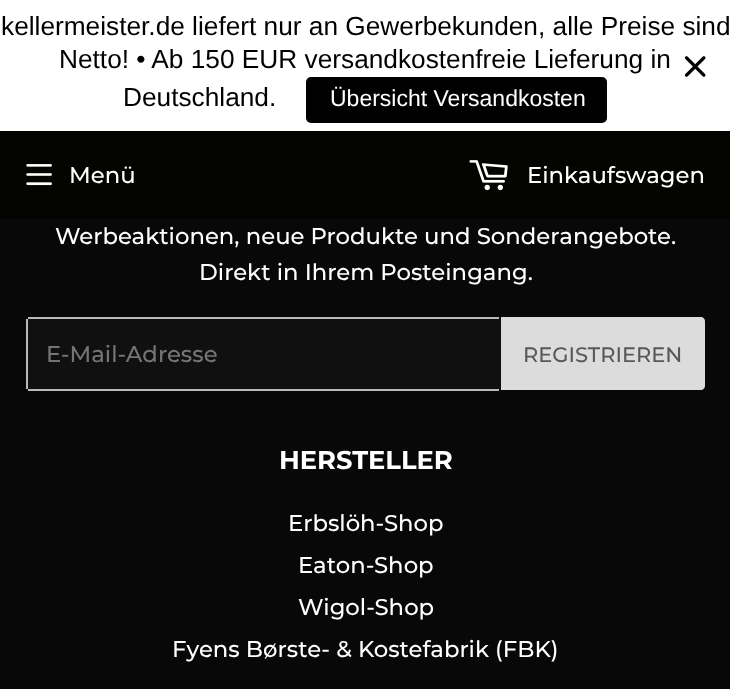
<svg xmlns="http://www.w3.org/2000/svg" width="730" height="689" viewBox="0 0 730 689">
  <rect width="100%" height="100%" fill="rgb(8,8,8)"/>
  <rect x="0" y="0" width="730" height="131" fill="rgb(255,255,255)"/>
  <g font-family="Liberation Sans" font-size="26.25" fill="rgb(0,0,0)">
    <text x="1" y="35">kellermeister.de liefert nur an Gewerbekunden, alle Preise sind</text>
    <text x="59" y="68">Netto! • Ab 150 EUR versandkostenfreie Lieferung in</text>
    <text x="123" y="106">Deutschland.</text>
  </g>
  <rect x="306" y="77" width="301" height="46" rx="5" fill="rgb(0,0,0)"/>
  <text x="330" y="106" font-family="Liberation Sans" font-size="23" fill="rgb(255,255,255)">Übersicht Versandkosten</text>
  <image x="684" y="56" width="22" height="21" href="pic1.png"/>
  <rect x="0" y="131" width="730" height="88" fill="rgb(3,3,0)"/>
  <image x="26" y="164" width="26" height="22" href="pic2.png"/>
  <text x="69" y="183" font-family="Montserrat" font-size="22.75" font-weight="500" fill="rgb(255,255,255)">Menü</text>
  <image x="469" y="160" width="39" height="31" href="pic3.png"/>
  <g font-family="Montserrat" font-size="22.75" font-weight="500" fill="rgb(255,255,255)">
    <text x="527" y="183">Einkaufswagen</text>
    <text x="55" y="244">Werbeaktionen, neue Produkte und Sonderangebote.</text>
    <text x="199" y="280">Direkt in Ihrem Posteingang.</text>
  </g>
  <rect x="26" y="317" width="475" height="73" rx="4" fill="rgb(16,16,16)"/>
  <rect x="28" y="317" width="471" height="2" fill="rgb(185,185,185)"/>
  <rect x="28" y="389" width="471" height="2" fill="rgb(185,185,185)"/>
  <rect x="26" y="319" width="2" height="70" fill="rgb(185,185,185)"/>
  <text x="46" y="362" font-family="Montserrat" font-size="22.75" font-weight="500" fill="rgb(117,117,117)">E-Mail-Adresse</text>
  <path d="M501 317H701C703 317 705 319 705 321V386C705 388 703 390 701 390H501Z" fill="rgb(220,220,220)"/>
  <text x="523" y="362" font-family="Montserrat" font-size="21" font-weight="500" fill="rgb(88,88,88)">REGISTRIEREN</text>
  <text x="279" y="469" font-family="Montserrat" font-size="25.75" font-weight="bold" fill="rgb(255,255,255)">HERSTELLER</text>
  <g font-family="Montserrat" font-size="22.75" font-weight="500" fill="rgb(255,255,255)">
    <text x="288" y="531">Erbslöh-Shop</text>
    <text>
      <tspan x="298" y="573">Eaton-Shop</tspan>
      <tspan x="298" y="615">Wigol-Shop</tspan>
    </text>
    <text x="172" y="657">Fyens Børste- &amp; Kostefabrik (FBK)</text>
  </g>
</svg>
